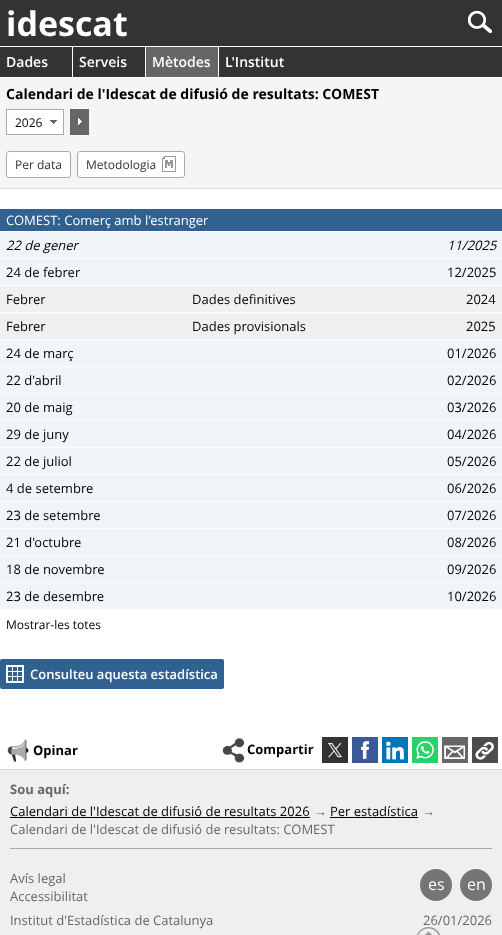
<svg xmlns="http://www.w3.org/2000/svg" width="502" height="935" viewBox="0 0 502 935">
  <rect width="100%" height="100%" fill="rgb(255,255,255)"/>
  <rect x="0" y="0" width="502" height="77" fill="rgb(51,51,51)"/>
  <text x="6" y="36" font-family="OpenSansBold" font-size="34" font-weight="bold" fill="rgb(255,255,255)">idescat</text>
  <rect x="0" y="46" width="502" height="1" fill="rgb(255,255,255)"/>
  <image x="468" y="11" width="24" height="22" href="pic1.png"/>
  <rect x="72" y="47" width="1" height="30" fill="rgb(255,255,255)"/>
  <text x="6" y="67" font-family="Open Sans" font-size="14" font-weight="600" fill="rgb(255,255,255)">Dades</text>
  <rect x="145" y="47" width="1" height="30" fill="rgb(255,255,255)"/>
  <text x="79" y="67" font-family="Open Sans" font-size="14" font-weight="600" fill="rgb(255,255,255)">Serveis</text>
  <rect x="218" y="47" width="1" height="30" fill="rgb(255,255,255)"/>
  <rect x="146" y="47" width="72" height="30" fill="rgb(102,102,102)"/>
  <g font-family="Open Sans" font-size="14" font-weight="600" fill="rgb(255,255,255)">
    <text x="152" y="67">Mètodes</text>
    <text x="225" y="67">L'Institut</text>
  </g>
  <rect x="0" y="78" width="502" height="110" fill="rgb(245,245,245)"/>
  <rect x="0" y="188" width="502" height="1" fill="rgb(221,221,221)"/>
  <text x="6" y="99" font-family="OpenSansBold" font-size="14" font-weight="bold" fill="rgb(0,0,0)">Calendari de l'Idescat de difusió de resultats: COMEST</text>
  <rect x="7" y="110" width="56" height="24" fill="rgb(255,255,255)"/>
  <image x="50" y="120" width="7" height="4" href="pic2.png"/>
  <rect x="6.5" y="109.5" width="57" height="25" fill="none" stroke="rgb(170,170,170)"/>
  <text x="15" y="127" font-family="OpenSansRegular" font-size="12" fill="rgb(0,0,0)">2026</text>
  <rect x="70" y="109" width="19" height="26" fill="rgb(102,102,102)"/>
  <image x="78" y="118" width="4" height="7" href="pic3.png"/>
  <rect x="6.5" y="151.5" width="64" height="26" rx="2.5" fill="rgb(255,255,255)" stroke="rgb(170,170,170)"/>
  <text x="15" y="169" font-family="OpenSansRegular" font-size="12" fill="rgb(51,51,51)">Per data</text>
  <rect x="77.5" y="151.5" width="107" height="26" rx="2.5" fill="rgb(255,255,255)" stroke="rgb(170,170,170)"/>
  <text x="86" y="169" font-family="OpenSansRegular" font-size="12" fill="rgb(51,51,51)">Metodologia</text>
  <image x="162" y="156" width="14" height="16" href="pic4.png"/>
  <rect x="0" y="232" width="502" height="377" fill="rgb(240,245,250)"/>
  <rect x="0" y="209" width="502" height="22" fill="rgb(48,97,145)"/>
  <text x="6" y="225" font-family="OpenSansRegular" font-size="13" fill="rgb(255,255,255)">COMEST: Comerç amb l'estranger</text>
  <g font-family="OpenSansRegular" font-size="13" font-style="italic" fill="rgb(0,0,0)">
    <text x="6" y="250">22 de gener</text>
    <text x="447" y="250">11/2025</text>
  </g>
  <text x="6" y="277" font-family="OpenSansRegular" font-size="13" fill="rgb(0,0,0)">24 de febrer</text>
  <rect x="0" y="258" width="502" height="1" fill="rgb(255,255,255)"/>
  <text x="447" y="277" font-family="OpenSansRegular" font-size="13" fill="rgb(0,0,0)">12/2025</text>
  <rect x="0" y="287" width="502" height="25" fill="rgb(240,240,240)"/>
  <g font-family="OpenSansRegular" font-size="13" fill="rgb(0,0,0)">
    <text x="6" y="304">Febrer</text>
    <text x="192" y="304">Dades definitives</text>
  </g>
  <rect x="0" y="285" width="502" height="1" fill="rgb(255,255,255)"/>
  <text x="466" y="304" font-family="OpenSansRegular" font-size="13" fill="rgb(0,0,0)">2024</text>
  <rect x="0" y="314" width="502" height="25" fill="rgb(240,240,240)"/>
  <g font-family="OpenSansRegular" font-size="13" fill="rgb(0,0,0)">
    <text x="6" y="331">Febrer</text>
    <text x="192" y="331">Dades provisionals</text>
  </g>
  <rect x="0" y="312" width="502" height="1" fill="rgb(255,255,255)"/>
  <g font-family="OpenSansRegular" font-size="13" fill="rgb(0,0,0)">
    <text x="466" y="331">2025</text>
    <text x="6" y="358">24 de març</text>
  </g>
  <rect x="0" y="339" width="502" height="1" fill="rgb(255,255,255)"/>
  <g font-family="OpenSansRegular" font-size="13" fill="rgb(0,0,0)">
    <text x="447" y="358">01/2026</text>
    <text x="6" y="385">22 d'abril</text>
  </g>
  <rect x="0" y="366" width="502" height="1" fill="rgb(255,255,255)"/>
  <g font-family="OpenSansRegular" font-size="13" fill="rgb(0,0,0)">
    <text x="447" y="385">02/2026</text>
    <text x="6" y="412">20 de maig</text>
  </g>
  <rect x="0" y="393" width="502" height="1" fill="rgb(255,255,255)"/>
  <g font-family="OpenSansRegular" font-size="13" fill="rgb(0,0,0)">
    <text x="447" y="412">03/2026</text>
    <text x="6" y="439">29 de juny</text>
  </g>
  <rect x="0" y="420" width="502" height="1" fill="rgb(255,255,255)"/>
  <g font-family="OpenSansRegular" font-size="13" fill="rgb(0,0,0)">
    <text x="447" y="439">04/2026</text>
    <text x="6" y="466">22 de juliol</text>
  </g>
  <rect x="0" y="447" width="502" height="1" fill="rgb(255,255,255)"/>
  <g font-family="OpenSansRegular" font-size="13" fill="rgb(0,0,0)">
    <text x="447" y="466">05/2026</text>
    <text x="6" y="493">4 de setembre</text>
  </g>
  <rect x="0" y="474" width="502" height="1" fill="rgb(255,255,255)"/>
  <g font-family="OpenSansRegular" font-size="13" fill="rgb(0,0,0)">
    <text x="447" y="493">06/2026</text>
    <text x="6" y="520">23 de setembre</text>
  </g>
  <rect x="0" y="501" width="502" height="1" fill="rgb(255,255,255)"/>
  <g font-family="OpenSansRegular" font-size="13" fill="rgb(0,0,0)">
    <text x="447" y="520">07/2026</text>
    <text x="6" y="547">21 d'octubre</text>
  </g>
  <rect x="0" y="528" width="502" height="1" fill="rgb(255,255,255)"/>
  <g font-family="OpenSansRegular" font-size="13" fill="rgb(0,0,0)">
    <text x="447" y="547">08/2026</text>
    <text x="6" y="574">18 de novembre</text>
  </g>
  <rect x="0" y="555" width="502" height="1" fill="rgb(255,255,255)"/>
  <g font-family="OpenSansRegular" font-size="13" fill="rgb(0,0,0)">
    <text x="447" y="574">09/2026</text>
    <text x="6" y="601">23 de desembre</text>
  </g>
  <rect x="0" y="582" width="502" height="1" fill="rgb(255,255,255)"/>
  <text x="447" y="601" font-family="OpenSansRegular" font-size="13" fill="rgb(0,0,0)">10/2026</text>
  <text x="6" y="629" font-family="OpenSansRegular" font-size="12" fill="rgb(0,0,0)">Mostrar-les totes</text>
  <rect x="0" y="659" width="224" height="30" rx="2" fill="rgb(48,97,145)"/>
  <image x="6" y="665" width="18" height="18" href="pic5.png"/>
  <text x="30" y="679" font-family="Open Sans" font-size="13" font-weight="600" fill="rgb(255,255,255)">Consulteu aquesta estadística</text>
  <image x="7" y="739" width="22" height="23" href="pic6.png"/>
  <text x="33" y="755" font-family="OpenSansBold" font-size="13" font-weight="bold" fill="rgb(0,0,0)">Opinar</text>
  <image x="222" y="738" width="23" height="25" href="pic7.png"/>
  <text x="247" y="754" font-family="OpenSansBold" font-size="13" font-weight="bold" fill="rgb(0,0,0)">Compartir</text>
  <image x="322" y="737" width="26" height="26" href="pic8.png"/>
  <image x="352" y="737" width="26" height="26" href="pic9.png"/>
  <image x="382" y="737" width="26" height="26" href="pic10.png"/>
  <image x="412" y="737" width="26" height="26" href="pic11.png"/>
  <image x="442" y="737" width="26" height="26" href="pic12.png"/>
  <image x="472" y="737" width="26" height="26" href="pic13.png"/>
  <rect x="0" y="770" width="502" height="165" fill="rgb(239,239,239)"/>
  <rect x="0" y="769" width="502" height="1" fill="rgb(220,215,218)"/>
  <rect x="10" y="848" width="482" height="1" fill="rgb(170,170,170)"/>
  <text x="10" y="794" font-family="OpenSansBold" font-size="13" font-weight="bold" fill="rgb(102,102,102)">Sou aquí:</text>
  <text x="10" y="816" font-family="OpenSansRegular" font-size="13" fill="rgb(0,0,0)">Calendari de l'Idescat de difusió de resultats 2026</text>
  <rect x="10" y="817" width="300" height="1" fill="rgb(0,0,0)"/>
  <text x="314" y="816" font-family="Liberation Sans" font-size="13" fill="rgb(102,102,102)">→</text>
  <text x="330" y="816" font-family="OpenSansRegular" font-size="13" fill="rgb(0,0,0)">Per estadística</text>
  <rect x="330" y="817" width="88" height="1" fill="rgb(0,0,0)"/>
  <text x="422" y="816" font-family="Liberation Sans" font-size="13" fill="rgb(102,102,102)">→</text>
  <g font-family="OpenSansRegular" font-size="13" fill="rgb(102,102,102)">
    <text x="10" y="834">Calendari de l'Idescat de difusió de resultats: COMEST</text>
    <text>
      <tspan x="10" y="883">Avís legal</tspan>
      <tspan x="10" y="901">Accessibilitat</tspan>
      <tspan x="10" y="925">Institut d'Estadística de Catalunya</tspan>
    </text>
  </g>
  <circle cx="436" cy="885" r="16" fill="rgb(117,117,117)"/>
  <text x="428" y="890" font-family="OpenSansRegular" font-size="16" fill="rgb(255,255,255)">es</text>
  <circle cx="476" cy="885" r="16" fill="rgb(117,117,117)"/>
  <text x="467" y="890" font-family="OpenSansRegular" font-size="16" fill="rgb(255,255,255)">en</text>
  <text x="423" y="925" font-family="OpenSansRegular" font-size="13" fill="rgb(102,102,102)">26/01/2026</text>
  <image x="417" y="927" width="23" height="8" href="pic14.png"/>
</svg>
